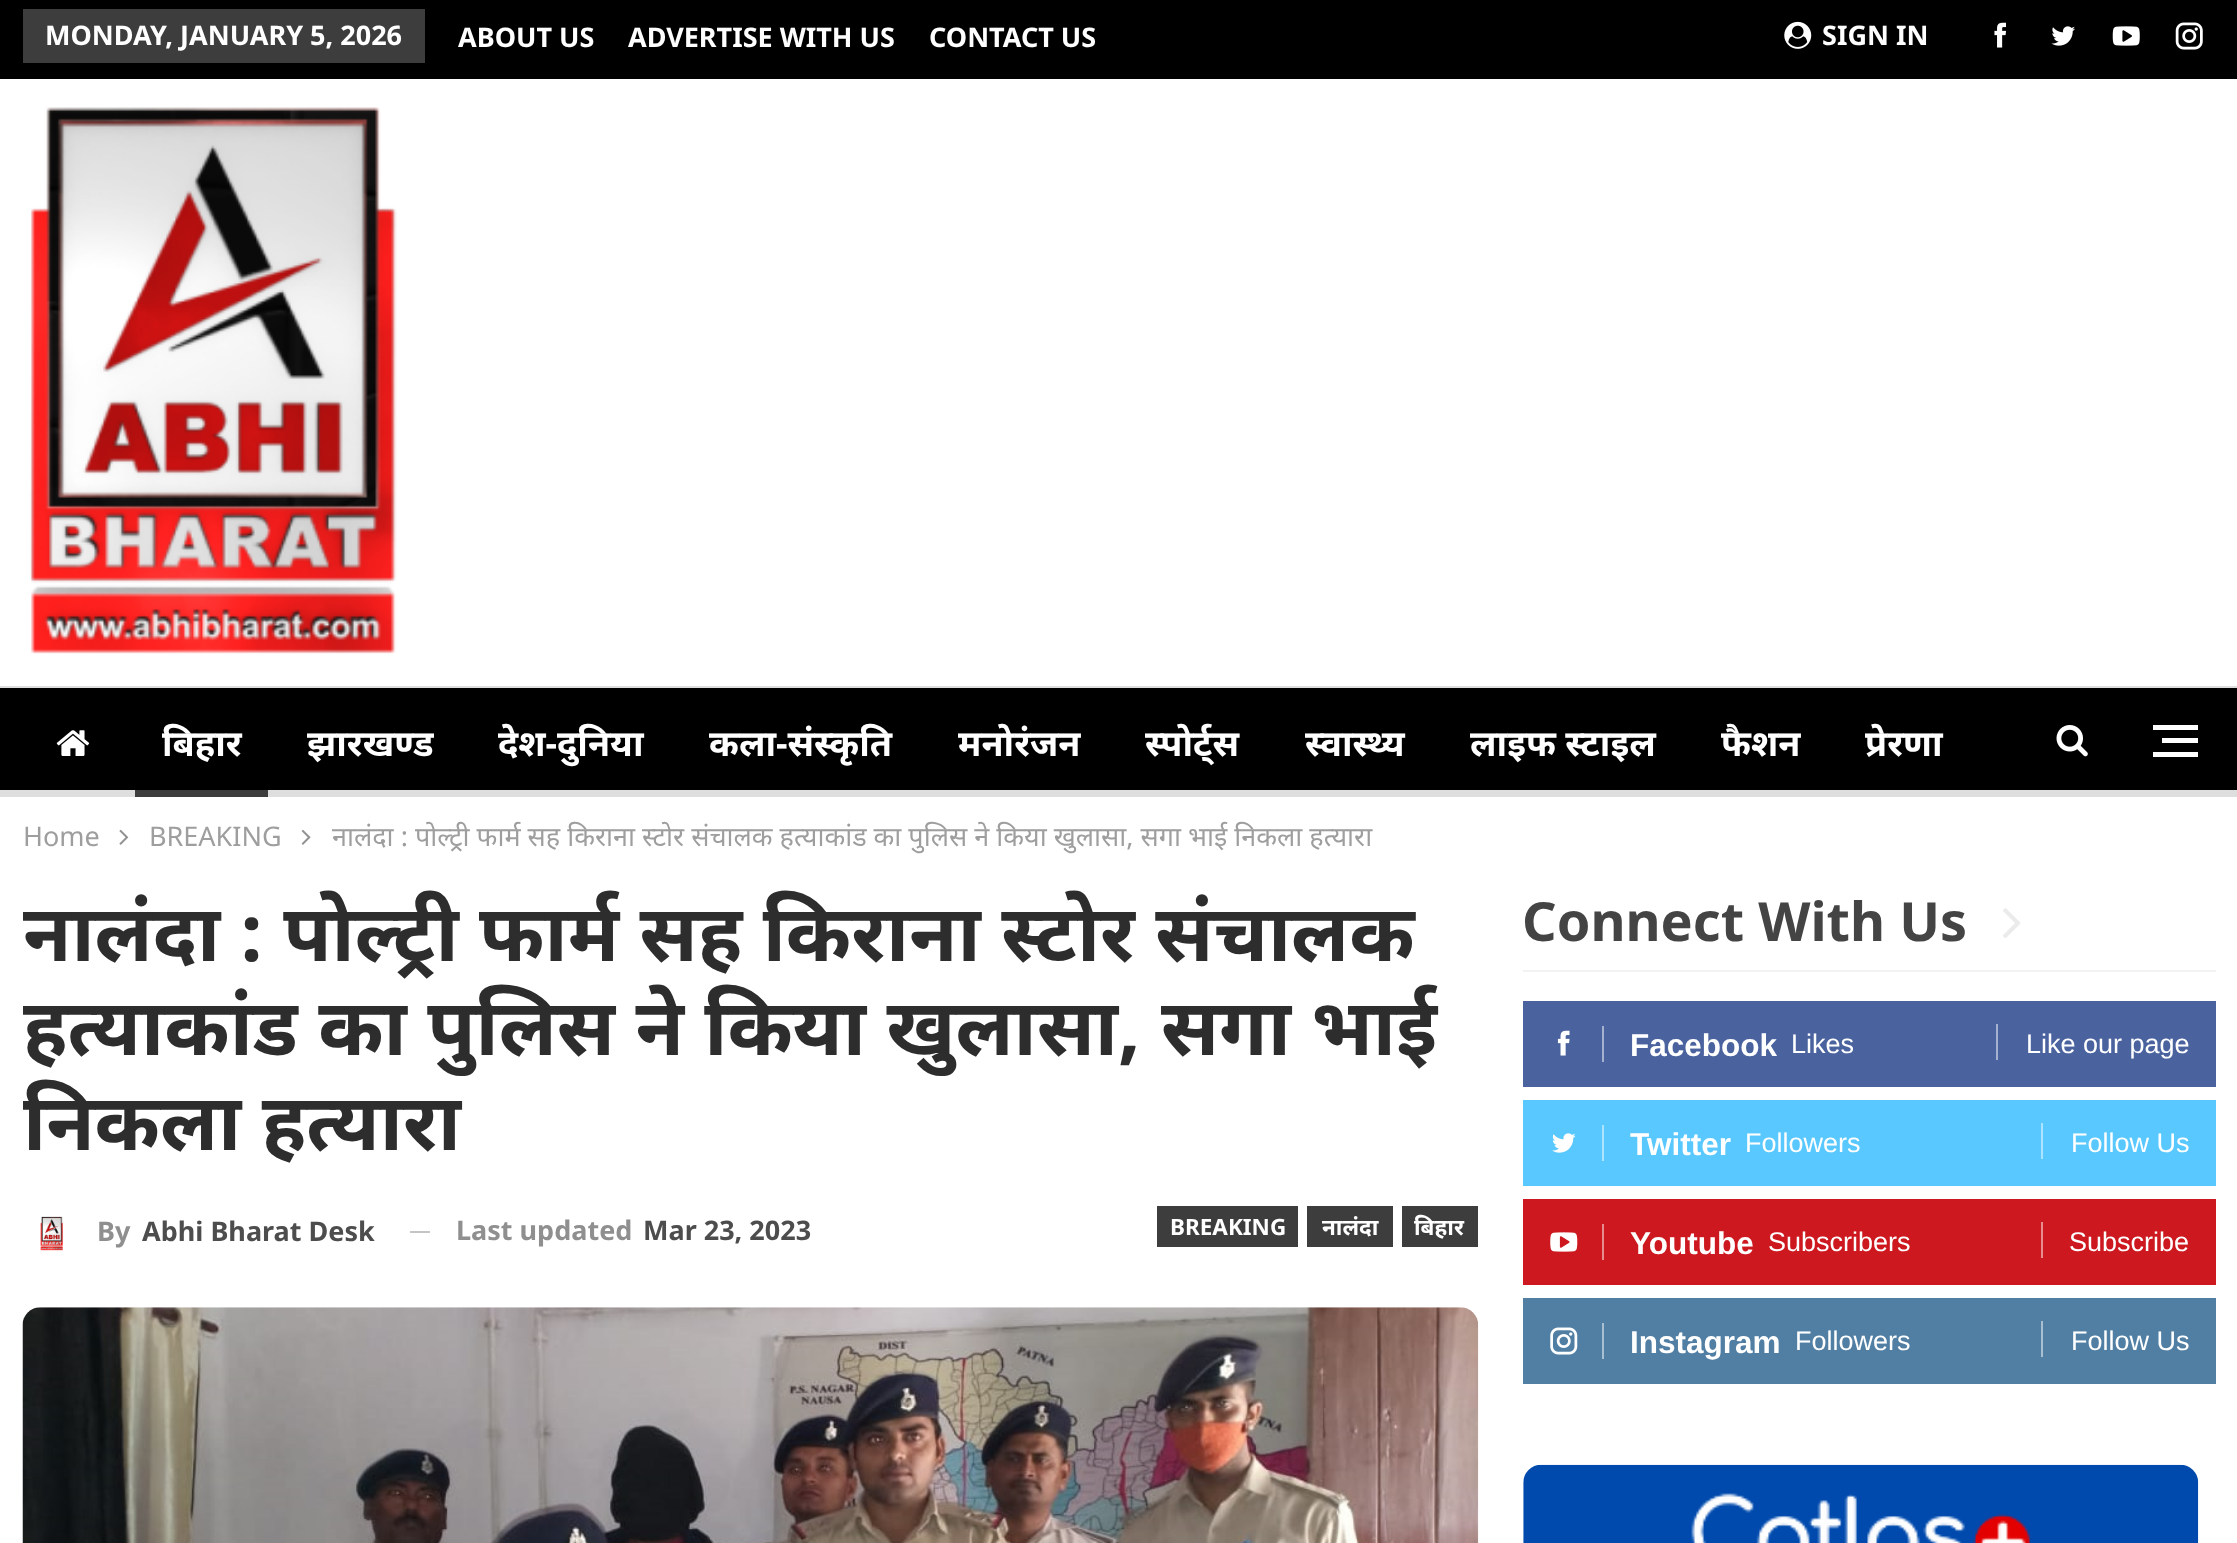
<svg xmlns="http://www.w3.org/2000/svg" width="2237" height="1543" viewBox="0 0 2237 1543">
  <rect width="100%" height="100%" fill="rgb(255,255,255)"/>
  <rect x="0" y="0" width="2237" height="79" fill="rgb(0,0,0)"/>
  <rect x="23" y="9" width="402" height="54" fill="rgb(61,61,61)"/>
  <g font-family="Noto Sans" font-size="27" font-weight="bold" fill="rgb(255,255,255)">
    <text x="45" y="45">MONDAY, JANUARY 5, 2026</text>
    <text x="458" y="47">ABOUT US</text>
    <text x="628" y="47">ADVERTISE WITH US</text>
    <text x="929" y="47">CONTACT US</text>
  </g>
  <image x="1784" y="21" width="28" height="28" href="pic1.png"/>
  <text x="1822" y="45" font-family="Noto Sans" font-size="27" font-weight="bold" fill="rgb(255,255,255)">SIGN IN</text>
  <image x="1994" y="22" width="12" height="26" href="pic2.png"/>
  <image x="2051" y="26" width="24" height="20" href="pic3.png"/>
  <image x="2112" y="26" width="28" height="20" href="pic4.png"/>
  <image x="2175" y="22" width="28" height="28" href="pic5.png"/>
  <image x="29" y="107" width="368" height="547" href="pic6.png"/>
  <rect x="0" y="688" width="2237" height="102" fill="rgb(0,0,0)"/>
  <rect x="0" y="686" width="2237" height="2" fill="rgb(222,222,222)"/>
  <rect x="0" y="790" width="2237" height="7" fill="rgb(222,222,222)"/>
  <image x="56" y="730" width="34" height="26" href="pic7.png"/>
  <text x="162" y="756" font-family="Noto Sans" font-size="36" font-weight="bold" fill="rgb(255,255,255)">बिहार</text>
  <rect x="135" y="790" width="133" height="7" fill="rgb(61,61,61)"/>
  <g font-family="Noto Sans" font-size="36" font-weight="bold" fill="rgb(255,255,255)">
    <text x="307" y="756">झारखण्ड</text>
    <text x="498" y="756">देश-दुनिया</text>
    <text x="709" y="756">कला-संस्कृति</text>
    <text x="958" y="756">मनोरंजन</text>
    <text x="1145" y="756">स्पोर्ट्स</text>
    <text x="1305" y="756">स्वास्थ्य</text>
    <text x="1470" y="756">लाइफ स्टाइल</text>
    <text x="1721" y="756">फैशन</text>
    <text x="1865" y="756">प्रेरणा</text>
  </g>
  <image x="2056" y="725" width="32" height="32" href="pic8.png"/>
  <rect x="2162" y="738" width="36" height="5" fill="rgb(255,255,255)"/>
  <rect x="2153" y="725" width="45" height="5" fill="rgb(255,255,255)"/>
  <rect x="2153" y="752" width="45" height="5" fill="rgb(255,255,255)"/>
  <text x="23" y="846" font-family="Noto Sans" font-size="27" fill="rgb(158,158,158)">Home</text>
  <image x="119" y="829" width="10" height="16" href="pic9.png"/>
  <text x="149" y="846" font-family="Noto Sans" font-size="27" fill="rgb(158,158,158)">BREAKING</text>
  <image x="301" y="829" width="10" height="16" href="pic10.png"/>
  <text x="332" y="846" font-family="Noto Sans" font-size="27" fill="rgb(158,158,158)">नालंदा : पोल्ट्री फार्म सह किराना स्टोर संचालक हत्याकांड का पुलिस ने किया खुलासा, सगा भाई निकला हत्यारा</text>
  <g font-family="Noto Sans" font-size="78.75" font-weight="bold" fill="rgb(45,45,45)">
    <text>
      <tspan x="23" y="961">नालंदा : पोल्ट्री फार्म सह किराना स्टोर संचालक</tspan>
      <tspan x="23" y="1055">हत्याकांड का पुलिस ने किया खुलासा, सगा भाई</tspan>
      <tspan x="23" y="1150">निकला हत्यारा</tspan>
    </text>
  </g>
  <image x="40" y="1216" width="23" height="35" href="pic11.png"/>
  <text x="97" y="1241" font-family="Noto Sans" font-size="27" font-weight="bold" fill="rgb(143,143,143)">By</text>
  <text x="142" y="1241" font-family="Noto Sans" font-size="27" font-weight="bold" fill="rgb(77,77,77)">Abhi Bharat Desk</text>
  <rect x="410" y="1231" width="20" height="2" fill="rgb(196,196,196)"/>
  <text x="456" y="1240" font-family="Noto Sans" font-size="27" font-weight="bold" fill="rgb(143,143,143)">Last updated</text>
  <text x="643" y="1240" font-family="Noto Sans" font-size="27" font-weight="bold" fill="rgb(77,77,77)">Mar 23, 2023</text>
  <rect x="1157" y="1206" width="141" height="41" fill="rgb(61,61,61)"/>
  <text x="1170" y="1235" font-family="Noto Sans" font-size="22.5" font-weight="bold" fill="rgb(255,255,255)">BREAKING</text>
  <rect x="1307" y="1206" width="86" height="41" fill="rgb(61,61,61)"/>
  <text x="1322" y="1235" font-family="Noto Sans" font-size="22.5" font-weight="bold" fill="rgb(255,255,255)">नालंदा</text>
  <rect x="1402" y="1206" width="76" height="41" fill="rgb(61,61,61)"/>
  <text x="1414" y="1235" font-family="Noto Sans" font-size="22.5" font-weight="bold" fill="rgb(255,255,255)">बिहार</text>
  <image x="22" y="1307" width="1457" height="236" href="pic12.png"/>
  <text x="1522" y="941" font-family="Noto Sans" font-size="54" font-weight="bold" fill="rgb(68,68,68)">Connect With Us</text>
  <image x="2003" y="908" width="18" height="30" href="pic13.png"/>
  <rect x="1523" y="970" width="693" height="2" fill="rgb(242,242,242)"/>
  <rect x="1523" y="1001" width="693" height="86" fill="rgb(74,99,159)"/>
  <image x="1557" y="1030" width="13" height="26" href="pic14.png"/>
  <rect x="1602" y="1026" width="2" height="36" fill="rgb(165,177,207)"/>
  <text x="1630" y="1056" font-family="Liberation Sans" font-size="31.5" font-weight="bold" fill="rgb(255,255,255)">Facebook</text>
  <text x="1791" y="1053" font-family="Liberation Sans" font-size="27" fill="rgb(255,255,255)">Likes</text>
  <rect x="1996" y="1024" width="2" height="36" fill="rgb(165,177,207)"/>
  <text x="2026" y="1053" font-family="Liberation Sans" font-size="27" fill="rgb(255,255,255)">Like our page</text>
  <rect x="1523" y="1100" width="693" height="86" fill="rgb(89,200,255)"/>
  <image x="1552" y="1133" width="24" height="20" href="pic15.png"/>
  <rect x="1602" y="1125" width="2" height="36" fill="rgb(172,228,255)"/>
  <text x="1630" y="1155" font-family="Liberation Sans" font-size="31.5" font-weight="bold" fill="rgb(255,255,255)">Twitter</text>
  <text x="1745" y="1152" font-family="Liberation Sans" font-size="27" fill="rgb(255,255,255)">Followers</text>
  <rect x="2041" y="1123" width="2" height="36" fill="rgb(172,228,255)"/>
  <text x="2071" y="1152" font-family="Liberation Sans" font-size="27" fill="rgb(255,255,255)">Follow Us</text>
  <rect x="1523" y="1199" width="693" height="86" fill="rgb(204,24,30)"/>
  <image x="1550" y="1232" width="28" height="20" href="pic16.png"/>
  <rect x="1602" y="1224" width="2" height="36" fill="rgb(230,140,143)"/>
  <text x="1630" y="1254" font-family="Liberation Sans" font-size="31.5" font-weight="bold" fill="rgb(255,255,255)">Youtube</text>
  <text x="1768" y="1251" font-family="Liberation Sans" font-size="27" fill="rgb(255,255,255)">Subscribers</text>
  <rect x="2041" y="1222" width="2" height="36" fill="rgb(230,140,143)"/>
  <text x="2069" y="1251" font-family="Liberation Sans" font-size="27" fill="rgb(255,255,255)">Subscribe</text>
  <rect x="1523" y="1298" width="693" height="86" fill="rgb(81,127,164)"/>
  <image x="1550" y="1327" width="28" height="28" href="pic17.png"/>
  <rect x="1602" y="1323" width="2" height="36" fill="rgb(168,191,210)"/>
  <text x="1630" y="1353" font-family="Liberation Sans" font-size="31.5" font-weight="bold" fill="rgb(255,255,255)">Instagram</text>
  <text x="1795" y="1350" font-family="Liberation Sans" font-size="27" fill="rgb(255,255,255)">Followers</text>
  <rect x="2041" y="1321" width="2" height="36" fill="rgb(168,191,210)"/>
  <text x="2071" y="1350" font-family="Liberation Sans" font-size="27" fill="rgb(255,255,255)">Follow Us</text>
  <image x="1523" y="1464" width="676" height="79" href="pic18.png"/>
</svg>
